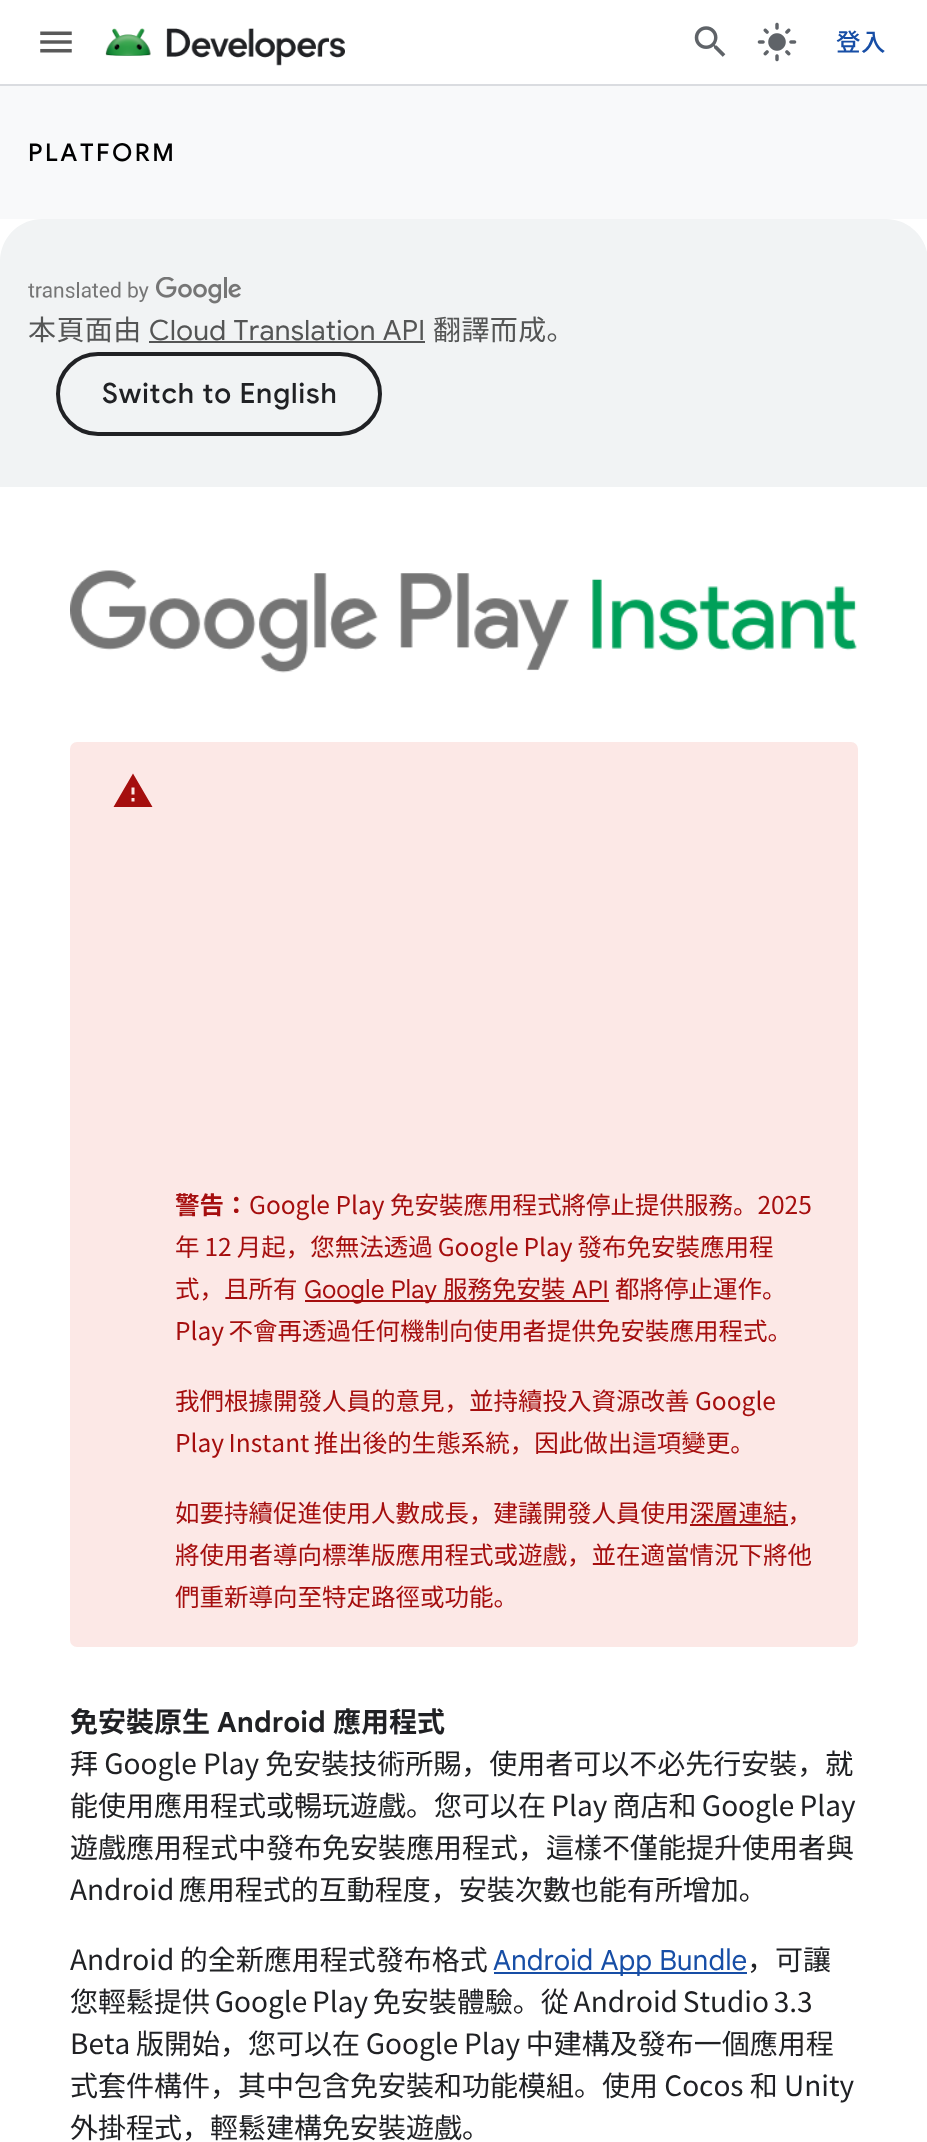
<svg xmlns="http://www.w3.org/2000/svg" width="927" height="2142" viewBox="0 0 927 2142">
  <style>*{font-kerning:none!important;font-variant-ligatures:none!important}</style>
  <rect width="100%" height="100%" fill="rgb(255,255,255)"/>
  <rect x="0" y="84" width="927" height="2" fill="rgb(218,220,224)"/>
  <image x="40" y="31" width="32" height="22" href="pic1.png"/>
  <image x="105" y="28" width="240" height="38" href="pic2.png"/>
  <image x="694" y="26" width="32" height="31" href="pic3.png"/>
  <image x="757" y="22" width="40" height="40" href="pic4.png"/>
  <text x="836" y="51" font-family="Noto Sans JP" font-size="24.5" font-weight="500" letter-spacing="0.4" fill="rgb(23,78,166)">登入</text>
  <rect x="0" y="86" width="927" height="133" fill="rgb(248,249,250)"/>
  <text x="28" y="161" font-family="Google Sans" font-size="24.5" font-weight="500" letter-spacing="2.5" fill="rgb(0,0,0)">PLATFORM</text>
  <path d="M42 219H886C909 219 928 238 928 261V487H0V261C0 238 19 219 42 219Z" fill="rgb(241,243,244)"/>
  <image x="28" y="277" width="213" height="27" href="pic5.png"/>
  <text x="28" y="340" font-family="Noto Sans JP" font-size="28" letter-spacing="0.4" fill="rgb(84,85,85)">本頁面由</text>
  <text x="149" y="340" font-family="Google Sans" font-size="28" letter-spacing="0.4" fill="rgb(84,85,85)">Cloud Translation API</text>
  <rect x="149" y="341" width="276" height="2" fill="rgb(84,85,85)"/>
  <text x="433" y="340" font-family="Noto Sans JP" font-size="28" letter-spacing="0.4" fill="rgb(84,85,85)">翻譯而成。</text>
  <rect x="58" y="354" width="322" height="80" rx="40" fill="none" stroke="rgb(32,33,36)" stroke-width="4"/>
  <text x="102" y="403" font-family="Google Sans" font-size="28" font-weight="500" letter-spacing="0.9" fill="rgb(32,33,36)">Switch to English</text>
  <image x="70" y="570" width="787" height="103" href="pic6.png"/>
  <rect x="70" y="742" width="788" height="905" rx="7" fill="rgb(252,232,230)"/>
  <path d="M134.5 794.5V787.5H131.5V794.5ZM134.5 801.5V798H131.5V801.5ZM113.5 807L133 773.5L152.5 807Z" fill="rgb(165,14,14)"/>
  <text x="175" y="1214" font-family="Noto Sans JP" font-size="24.5" font-weight="bold" fill="rgb(165,14,14)">警告：</text>
  <g font-family="Noto Sans JP" font-size="24.5" fill="rgb(165,14,14)">
    <text x="249" y="1214">Google Play 免安裝應用程式將停止提供服務。2025</text>
    <text>
      <tspan x="175" y="1256" word-spacing="-0.5">年 12 月起，您無法透過 Google Play 發布免安裝應用程</tspan>
      <tspan x="175" y="1298">式，且所有</tspan>
    </text>
  </g>
  <rect x="305" y="1300" width="304" height="2" fill="rgb(165,14,14)"/>
  <text x="304" y="1298" font-family="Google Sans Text" font-size="24.5" fill="rgb(165,14,14)">Google Play</text>
  <text x="443" y="1298" font-family="Noto Sans JP" font-size="24.5" fill="rgb(165,14,14)">服務免安裝</text>
  <text x="572" y="1298" font-family="Google Sans Text" font-size="24.5" fill="rgb(165,14,14)">API</text>
  <g font-family="Noto Sans JP" font-size="24.5" fill="rgb(165,14,14)">
    <text x="615" y="1298">都將停止運作。</text>
    <text x="175" y="1340" word-spacing="-1">Play 不會再透過任何機制向使用者提供免安裝應用程式。</text>
    <text>
      <tspan x="175" y="1410">我們根據開發人員的意見，並持續投入資源改善 Google</tspan>
      <tspan x="175" y="1452" word-spacing="-1">Play Instant 推出後的生態系統，因此做出這項變更。</tspan>
    </text>
    <text x="175" y="1522">如要持續促進使用人數成長，建議開發人員使用深層連結，</text>
  </g>
  <rect x="690" y="1524" width="98" height="2" fill="rgb(165,14,14)"/>
  <g font-family="Noto Sans JP" font-size="24.5" fill="rgb(165,14,14)">
    <text>
      <tspan x="175" y="1564">將使用者導向標準版應用程式或遊戲，並在適當情況下將他</tspan>
      <tspan x="175" y="1606">們重新導向至特定路徑或功能。</tspan>
    </text>
  </g>
  <text x="70" y="1732" font-family="Noto Sans JP" font-size="28" font-weight="bold" fill="rgb(32,33,36)">免安裝原生</text>
  <text x="217" y="1732" font-family="Google Sans Text" font-size="28" font-weight="bold" fill="rgb(32,33,36)">Android</text>
  <text x="333" y="1732" font-family="Noto Sans JP" font-size="28" font-weight="bold" fill="rgb(32,33,36)">應用程式</text>
  <g font-family="Noto Sans JP" font-size="28" fill="rgb(32,33,36)">
    <text>
      <tspan x="70" y="1774">拜 Google Play 免安裝技術所賜，使用者可以不必先行安裝，就</tspan>
      <tspan x="70" y="1816" word-spacing="-1">能使用應用程式或暢玩遊戲。您可以在 Play 商店和 Google Play</tspan>
      <tspan x="70" y="1858">遊戲應用程式中發布免安裝應用程式，這樣不僅能提升使用者與</tspan>
      <tspan x="70" y="1900" word-spacing="-2">Android 應用程式的互動程度，安裝次數也能有所增加。</tspan>
    </text>
    <text x="70" y="1970" word-spacing="-1">Android 的全新應用程式發布格式</text>
  </g>
  <rect x="494" y="1972" width="253" height="2" fill="rgb(23,78,166)"/>
  <text x="493" y="1970" font-family="Google Sans Text" font-size="28" fill="rgb(23,78,166)">Android App Bundle</text>
  <g font-family="Noto Sans JP" font-size="28" fill="rgb(32,33,36)">
    <text x="747" y="1970">，可讓</text>
    <text>
      <tspan x="70" y="2012" word-spacing="-1.5">您輕鬆提供 Google Play 免安裝體驗。從 Android Studio 3.3</tspan>
      <tspan x="70" y="2054" word-spacing="-0.5">Beta 版開始，您可以在 Google Play 中建構及發布一個應用程</tspan>
      <tspan x="70" y="2096">式套件構件，其中包含免安裝和功能模組。使用 Cocos 和 Unity</tspan>
      <tspan x="70" y="2138">外掛程式，輕鬆建構免安裝遊戲。</tspan>
    </text>
  </g>
</svg>
